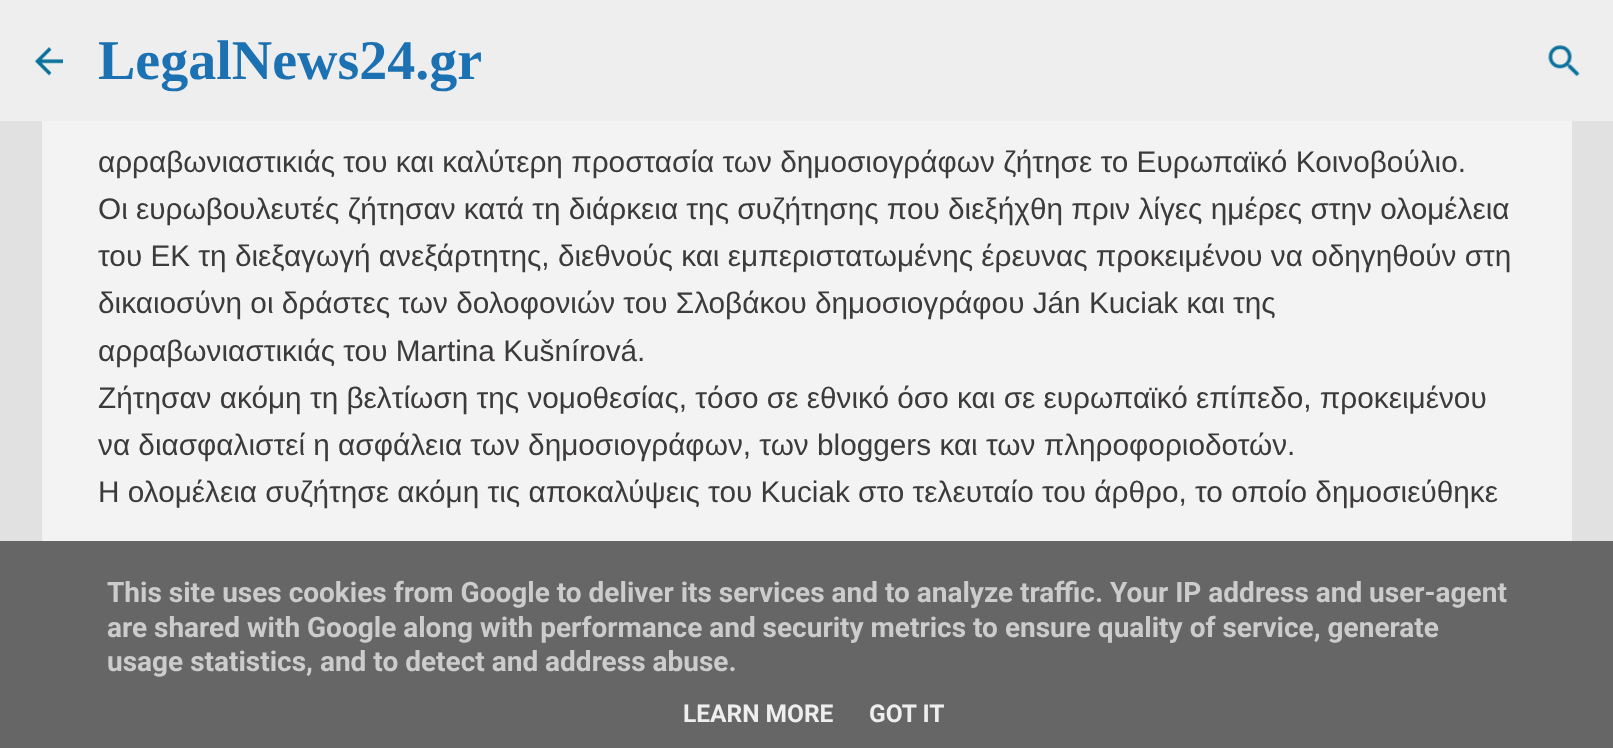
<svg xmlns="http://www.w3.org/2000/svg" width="1613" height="748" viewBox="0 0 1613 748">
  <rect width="100%" height="100%" fill="rgb(225,225,225)"/>
  <rect x="0" y="0" width="1613" height="121" fill="rgb(238,238,238)"/>
  <image x="35" y="47" width="28" height="29" href="pic1.png"/>
  <text x="98" y="79" font-family="Liberation Serif" font-size="56" font-weight="bold" fill="rgb(28,113,178)">LegalNews24.gr</text>
  <image x="1548" y="45" width="32" height="32" href="pic2.png"/>
  <rect x="42" y="121" width="1530" height="420" fill="rgb(243,243,243)"/>
  <g font-family="Liberation Sans" font-size="29.75" fill="rgb(60,58,58)">
    <text>
      <tspan x="98" y="172">αρραβωνιαστικιάς του και καλύτερη προστασία των δημοσιογράφων ζήτησε το Ευρωπαϊκό Κοινοβούλιο.</tspan>
      <tspan x="98" y="219">Οι ευρωβουλευτές ζήτησαν κατά τη διάρκεια της συζήτησης που διεξήχθη πριν λίγες ημέρες στην ολομέλεια</tspan>
      <tspan x="98" y="266">του ΕΚ τη διεξαγωγή ανεξάρτητης, διεθνούς και εμπεριστατωμένης έρευνας προκειμένου να οδηγηθούν στη</tspan>
      <tspan x="98" y="313">δικαιοσύνη οι δράστες των δολοφονιών του Σλοβάκου δημοσιογράφου Ján Kuciak και της</tspan>
      <tspan x="98" y="361">αρραβωνιαστικιάς του Martina Kušnírová.</tspan>
      <tspan x="98" y="408">Ζήτησαν ακόμη τη βελτίωση της νομοθεσίας, τόσο σε εθνικό όσο και σε ευρωπαϊκό επίπεδο, προκειμένου</tspan>
      <tspan x="98" y="455">να διασφαλιστεί η ασφάλεια των δημοσιογράφων, των bloggers και των πληροφοριοδοτών.</tspan>
      <tspan x="98" y="502">Η ολομέλεια συζήτησε ακόμη τις αποκαλύψεις του Kuciak στο τελευταίο του άρθρο, το οποίο δημοσιεύθηκε</tspan>
    </text>
  </g>
  <rect x="0" y="541" width="1613" height="207" fill="rgb(102,102,102)"/>
  <g font-family="Roboto" font-size="28" font-weight="bold" fill="rgb(204,204,204)">
    <text>
      <tspan x="107" y="602">This site uses cookies from Google to deliver its services and to analyze traffic. Your IP address and user-agent</tspan>
      <tspan x="107" y="637">are shared with Google along with performance and security metrics to ensure quality of service, generate</tspan>
      <tspan x="107" y="671">usage statistics, and to detect and address abuse.</tspan>
    </text>
  </g>
  <g font-family="Roboto" font-size="24.5" font-weight="bold" fill="rgb(238,238,238)">
    <text x="683" y="722">LEARN MORE</text>
    <text x="869" y="722">GOT IT</text>
  </g>
</svg>
